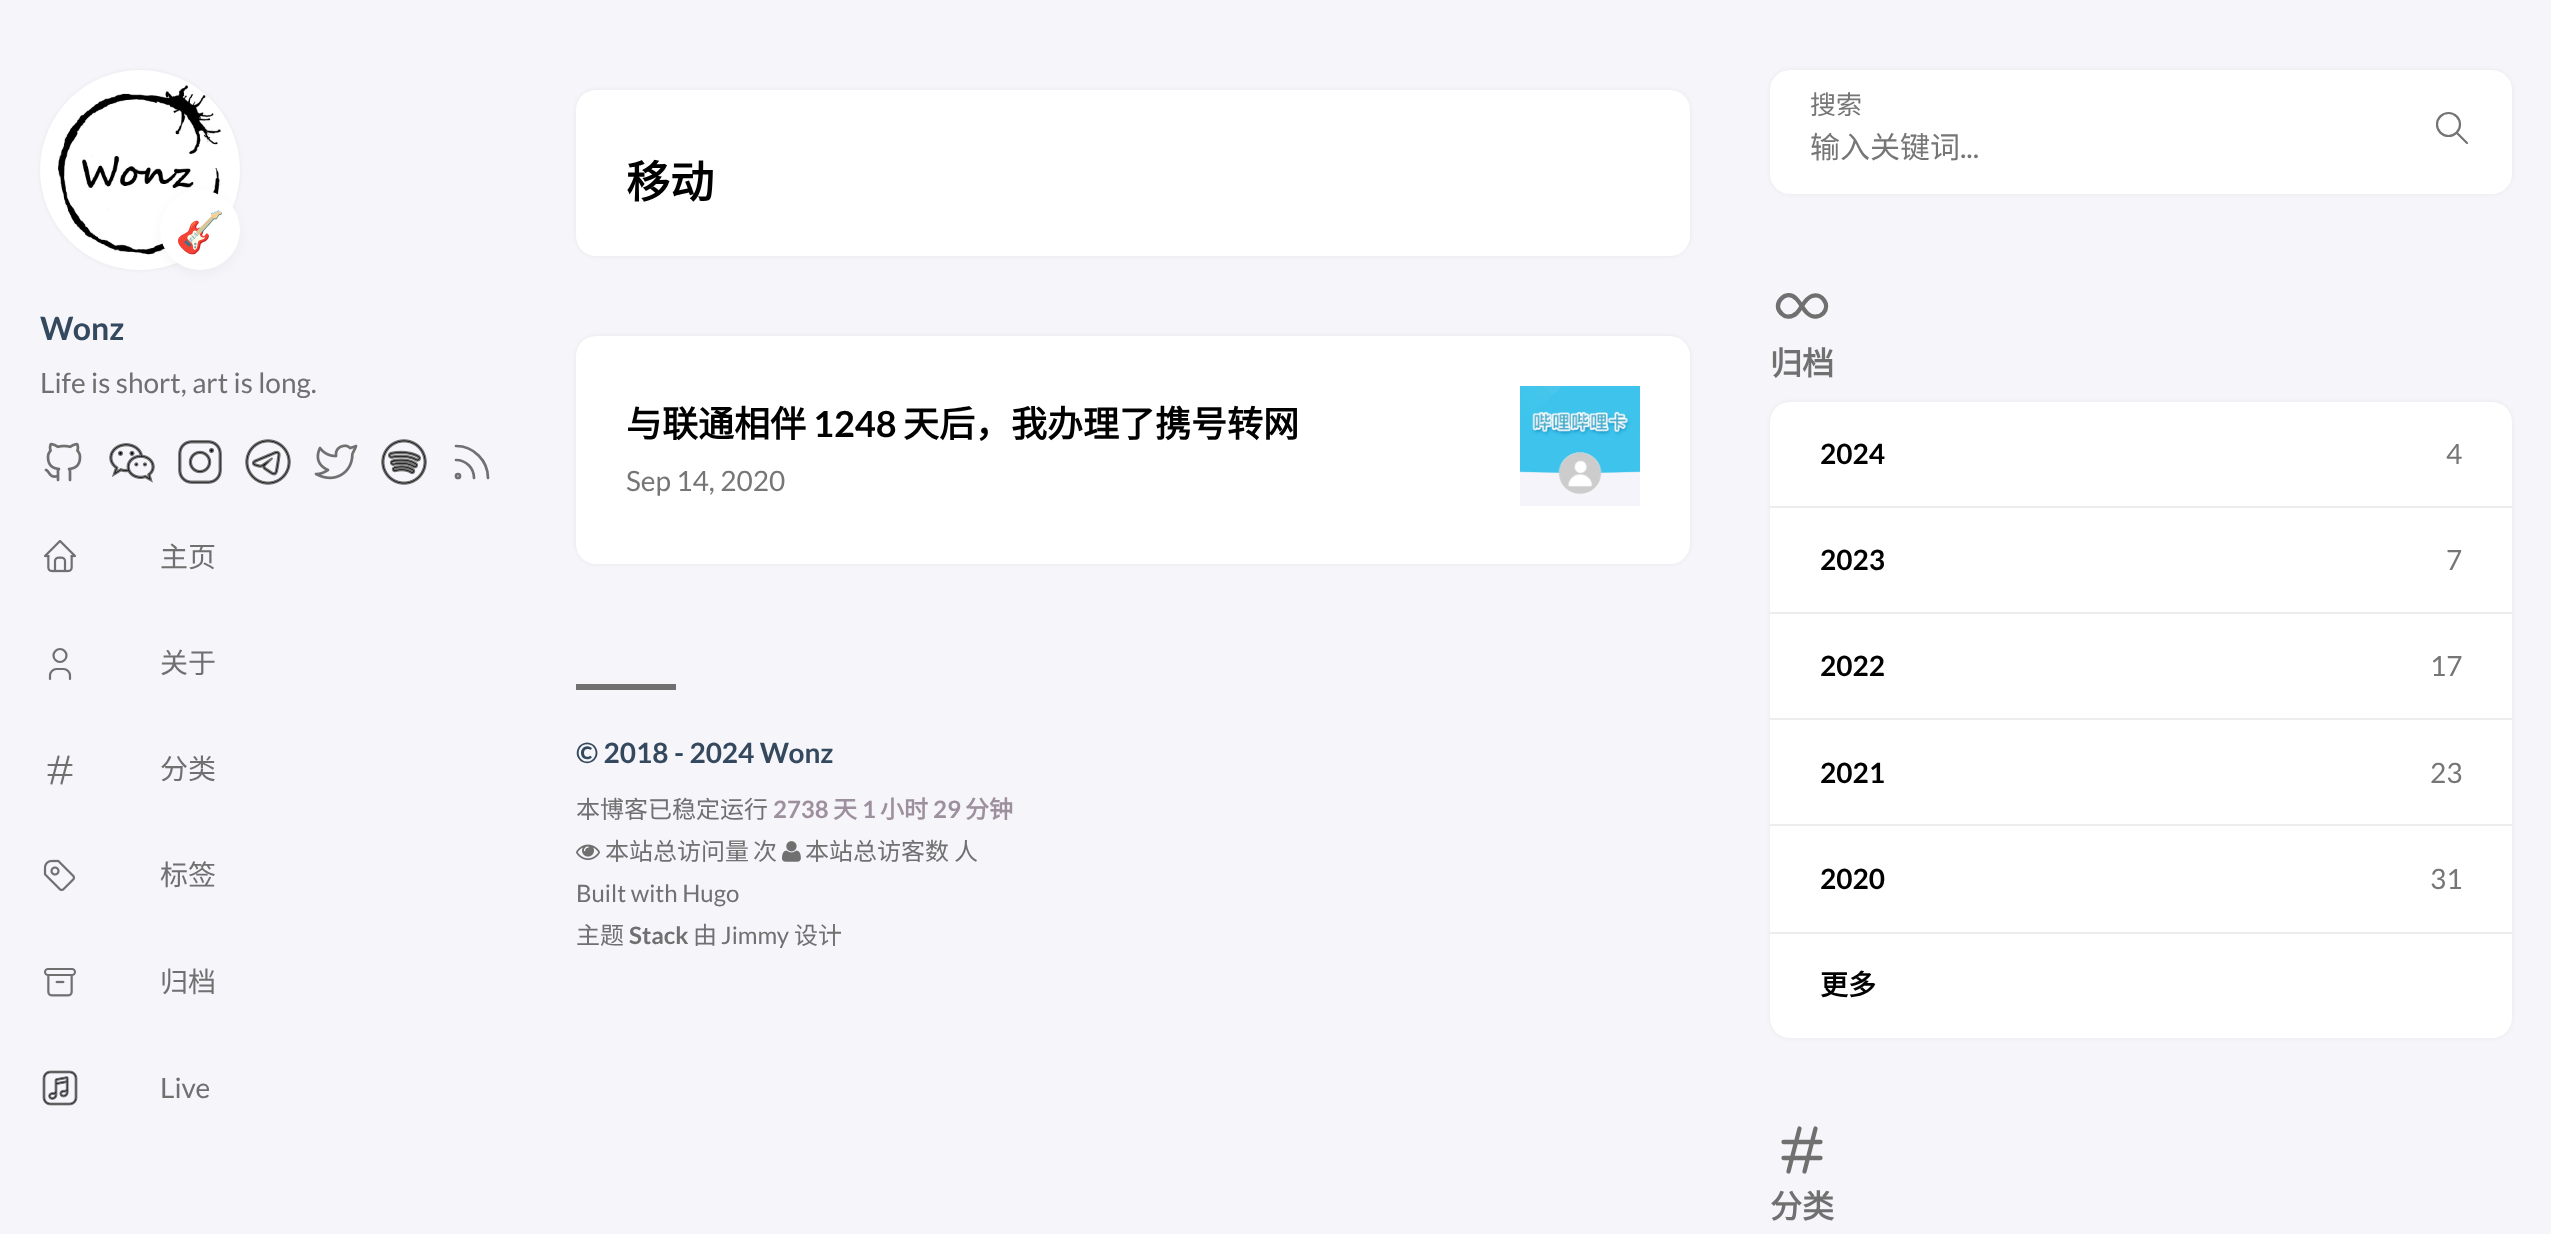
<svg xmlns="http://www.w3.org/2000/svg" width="2551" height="1234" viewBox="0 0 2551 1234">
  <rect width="100%" height="100%" fill="rgb(245,245,250)"/>
  <rect x="40" y="70" width="200" height="200" rx="100" fill="rgba(0,0,0,0.06)" filter="blur(2px)"/>
  <image x="40" y="70" width="200" height="200" href="pic1.png"/>
  <rect x="160" y="194" width="80" height="80" rx="40" fill="rgba(0,0,0,0.04)" filter="blur(6px)"/>
  <circle cx="200" cy="230" r="40" fill="rgb(255,255,255)"/>
  <text x="175" y="246" font-family="Noto Color Emoji" font-size="40" fill="rgb(0,0,0)">🎸</text>
  <text x="40" y="340" font-family="Lato" font-size="32" font-weight="bold" fill="rgb(52,73,94)">Wonz</text>
  <text x="40" y="393" font-family="Lato" font-size="28" fill="rgb(112,112,112)">Life is short, art is long.</text>
  <image x="44" y="442" width="38" height="40" href="pic2.png"/>
  <image x="109" y="443" width="46" height="40" href="pic3.png"/>
  <image x="178" y="440" width="44" height="44" href="pic4.png"/>
  <image x="245" y="439" width="46" height="46" href="pic5.png"/>
  <image x="314" y="444" width="44" height="36" href="pic6.png"/>
  <image x="381" y="439" width="46" height="46" href="pic7.png"/>
  <circle cx="458" cy="476" r="2" fill="none" stroke="rgb(112,112,112)" stroke-width="2.7"/>
  <path d="M456 446C473.5 446 488 460.5 488 478M456 460C466 460 474 468 474 478" fill="none" stroke="rgb(112,112,112)" stroke-width="2.7" stroke-linecap="round" stroke-linejoin="round"/>
  <image x="44" y="540" width="32" height="33" href="pic8.png"/>
  <text x="160" y="567" font-family="Noto Sans CJK SC" font-size="28" fill="rgb(112,112,112)">主页</text>
  <circle cx="60" cy="655.5" r="6.5" fill="none" stroke="rgb(112,112,112)" stroke-width="2.2"/>
  <path d="M50 679V675.5C50 672 53 669 56.5 669H63.5C67 669 70 672 70 675.5V679" fill="none" stroke="rgb(112,112,112)" stroke-width="2.2" stroke-linecap="round" stroke-linejoin="round"/>
  <text x="160" y="673" font-family="Noto Sans CJK SC" font-size="28" fill="rgb(112,112,112)">关于</text>
  <path d="M48.5 765H71.5M48.5 775H71.5M58.5 756.5L51.5 783.5M68.5 756.5L61.5 783.5" fill="none" stroke="rgb(112,112,112)" stroke-width="2.2" stroke-linecap="round" stroke-linejoin="round"/>
  <text x="160" y="779" font-family="Noto Sans CJK SC" font-size="28" fill="rgb(112,112,112)">分类</text>
  <image x="43" y="859" width="32" height="32" href="pic9.png"/>
  <text x="160" y="885" font-family="Noto Sans CJK SC" font-size="28" fill="rgb(112,112,112)">标签</text>
  <image x="44" y="968" width="32" height="29" href="pic10.png"/>
  <text x="160" y="992" font-family="Noto Sans CJK SC" font-size="28" fill="rgb(112,112,112)">归档</text>
  <image x="42" y="1070" width="36" height="36" href="pic11.png"/>
  <text x="160" y="1098" font-family="Lato" font-size="28" fill="rgb(112,112,112)">Live</text>
  <rect x="576" y="90" width="1114" height="166" rx="20" fill="rgba(0,0,0,0.06)" filter="blur(2px)"/>
  <rect x="576" y="90" width="1114" height="166" rx="20" fill="rgb(255,255,255)"/>
  <text x="626" y="198" font-family="Noto Sans CJK SC" font-size="44" font-weight="bold" fill="rgb(0,0,0)">移动</text>
  <rect x="576" y="336" width="1114" height="228" rx="20" fill="rgba(0,0,0,0.06)" filter="blur(2px)"/>
  <rect x="576" y="336" width="1114" height="228" rx="20" fill="rgb(255,255,255)"/>
  <text x="626" y="437" font-family="Noto Sans CJK SC" font-size="36" font-weight="bold" fill="rgb(0,0,0)">与联通相伴</text>
  <text x="813" y="437" font-family="Lato" font-size="36" font-weight="bold" fill="rgb(0,0,0)">1248</text>
  <text x="903" y="437" font-family="Noto Sans CJK SC" font-size="36" font-weight="bold" fill="rgb(0,0,0)">天后，我办理了携号转网</text>
  <text x="626" y="491" font-family="Lato" font-size="28" fill="rgb(118,118,118)">Sep 14, 2020</text>
  <image x="1520" y="386" width="120" height="120" href="pic12.png"/>
  <rect x="576" y="684" width="100" height="6" fill="rgb(112,112,112)"/>
  <text x="576" y="763" font-family="Lato" font-size="28" font-weight="bold" fill="rgb(52,73,94)">© 2018 - 2024 Wonz</text>
  <text x="576" y="818" font-family="Noto Sans CJK SC" font-size="24" fill="rgb(112,112,112)">本博客已稳定运行</text>
  <text x="773" y="818" font-family="Lato" font-size="24" font-weight="bold" fill="rgb(158,143,159)">2738</text>
  <text x="833" y="818" font-family="Noto Sans CJK SC" font-size="24" font-weight="bold" fill="rgb(158,143,159)">天</text>
  <text x="862" y="818" font-family="Lato" font-size="24" font-weight="bold" fill="rgb(158,143,159)">1</text>
  <text x="880" y="818" font-family="Noto Sans CJK SC" font-size="24" font-weight="bold" fill="rgb(158,143,159)">小时</text>
  <text x="933" y="818" font-family="Lato" font-size="24" font-weight="bold" fill="rgb(158,143,159)">29</text>
  <text x="965" y="818" font-family="Noto Sans CJK SC" font-size="24" font-weight="bold" fill="rgb(158,143,159)">分钟</text>
  <image x="576" y="844" width="24" height="16" href="pic13.png"/>
  <g font-family="Noto Sans CJK SC" font-size="24" fill="rgb(112,112,112)">
    <text x="605" y="860">本站总访问量</text>
    <text x="753" y="860">次</text>
  </g>
  <image x="782" y="841" width="19" height="21" href="pic14.png"/>
  <g font-family="Noto Sans CJK SC" font-size="24" fill="rgb(112,112,112)">
    <text x="805" y="860">本站总访客数</text>
    <text x="954" y="860">人</text>
  </g>
  <text x="576" y="902" font-family="Lato" font-size="24" fill="rgb(112,112,112)">Built with Hugo</text>
  <text x="576" y="944" font-family="Noto Sans CJK SC" font-size="24" fill="rgb(112,112,112)">主题</text>
  <text x="629" y="944" font-family="Lato" font-size="24" font-weight="bold" fill="rgb(112,112,112)">Stack</text>
  <text x="693" y="944" font-family="Noto Sans CJK SC" font-size="24" fill="rgb(112,112,112)">由</text>
  <text x="721" y="944" font-family="Lato" font-size="24" fill="rgb(112,112,112)">Jimmy</text>
  <text x="794" y="944" font-family="Noto Sans CJK SC" font-size="24" fill="rgb(112,112,112)">设计</text>
  <rect x="1770" y="70" width="742" height="124" rx="20" fill="rgba(0,0,0,0.06)" filter="blur(2px)"/>
  <rect x="1770" y="70" width="742" height="124" rx="20" fill="rgb(255,255,255)"/>
  <text x="1810" y="114" font-family="Noto Sans CJK SC" font-size="26" fill="rgb(118,118,118)">搜索</text>
  <text x="1810" y="158" font-family="Noto Sans CJK SC" font-size="30" fill="rgb(118,118,118)">输入关键词</text>
  <text x="1960" y="158" font-family="Lato" font-size="30" fill="rgb(118,118,118)">...</text>
  <circle cx="2448.5" cy="124.5" r="11.5" fill="none" stroke="rgb(116,116,116)" stroke-width="2.2"/>
  <path d="M2467 143L2457 133" fill="none" stroke="rgb(116,116,116)" stroke-width="2.2" stroke-linecap="round" stroke-linejoin="round"/>
  <path d="M1796 298.5C1786 288 1770.5 305 1782 314C1784 316 1786.5 317 1789 316.5C1801 316 1801.5 299.5 1812 296C1822 292.5 1830.5 305 1823.5 313C1821.5 315 1819 316.5 1816.5 316.5C1805.5 317.5 1802.5 304.5 1796 298.5" fill="none" stroke="rgb(112,112,112)" stroke-width="4.3" stroke-linecap="round" stroke-linejoin="round"/>
  <text x="1770" y="375" font-family="Noto Sans CJK SC" font-size="32" font-weight="bold" fill="rgb(112,112,112)">归档</text>
  <rect x="1770" y="402" width="742" height="636" rx="20" fill="rgba(0,0,0,0.06)" filter="blur(2px)"/>
  <rect x="1770" y="402" width="742" height="636" rx="20" fill="rgb(255,255,255)"/>
  <rect x="1770" y="506" width="742" height="2" fill="rgb(237,237,237)"/>
  <text x="1820" y="464" font-family="Lato" font-size="28" font-weight="bold" fill="rgb(0,0,0)">2024</text>
  <text x="2446" y="464" font-family="Lato" font-size="28" fill="rgb(118,118,118)">4</text>
  <rect x="1770" y="612" width="742" height="2" fill="rgb(237,237,237)"/>
  <text x="1820" y="570" font-family="Lato" font-size="28" font-weight="bold" fill="rgb(0,0,0)">2023</text>
  <text x="2446" y="570" font-family="Lato" font-size="28" fill="rgb(118,118,118)">7</text>
  <rect x="1770" y="718" width="742" height="2" fill="rgb(237,237,237)"/>
  <text x="1820" y="676" font-family="Lato" font-size="28" font-weight="bold" fill="rgb(0,0,0)">2022</text>
  <text x="2430" y="676" font-family="Lato" font-size="28" fill="rgb(118,118,118)">17</text>
  <rect x="1770" y="824" width="742" height="2" fill="rgb(237,237,237)"/>
  <text x="1820" y="783" font-family="Lato" font-size="28" font-weight="bold" fill="rgb(0,0,0)">2021</text>
  <text x="2430" y="783" font-family="Lato" font-size="28" fill="rgb(118,118,118)">23</text>
  <rect x="1770" y="932" width="742" height="2" fill="rgb(237,237,237)"/>
  <text x="1820" y="889" font-family="Lato" font-size="28" font-weight="bold" fill="rgb(0,0,0)">2020</text>
  <text x="2430" y="889" font-family="Lato" font-size="28" fill="rgb(118,118,118)">31</text>
  <text x="1820" y="995" font-family="Noto Sans CJK SC" font-size="28" font-weight="bold" fill="rgb(0,0,0)">更多</text>
  <path d="M1783.5 1142H1820.5M1783.5 1158H1820.5M1799.5 1128.5L1788.5 1171.5M1815.5 1128.5L1804.5 1171.5" fill="none" stroke="rgb(112,112,112)" stroke-width="4.3" stroke-linecap="round" stroke-linejoin="round"/>
  <text x="1770" y="1218" font-family="Noto Sans CJK SC" font-size="32" font-weight="bold" fill="rgb(112,112,112)">分类</text>
</svg>
